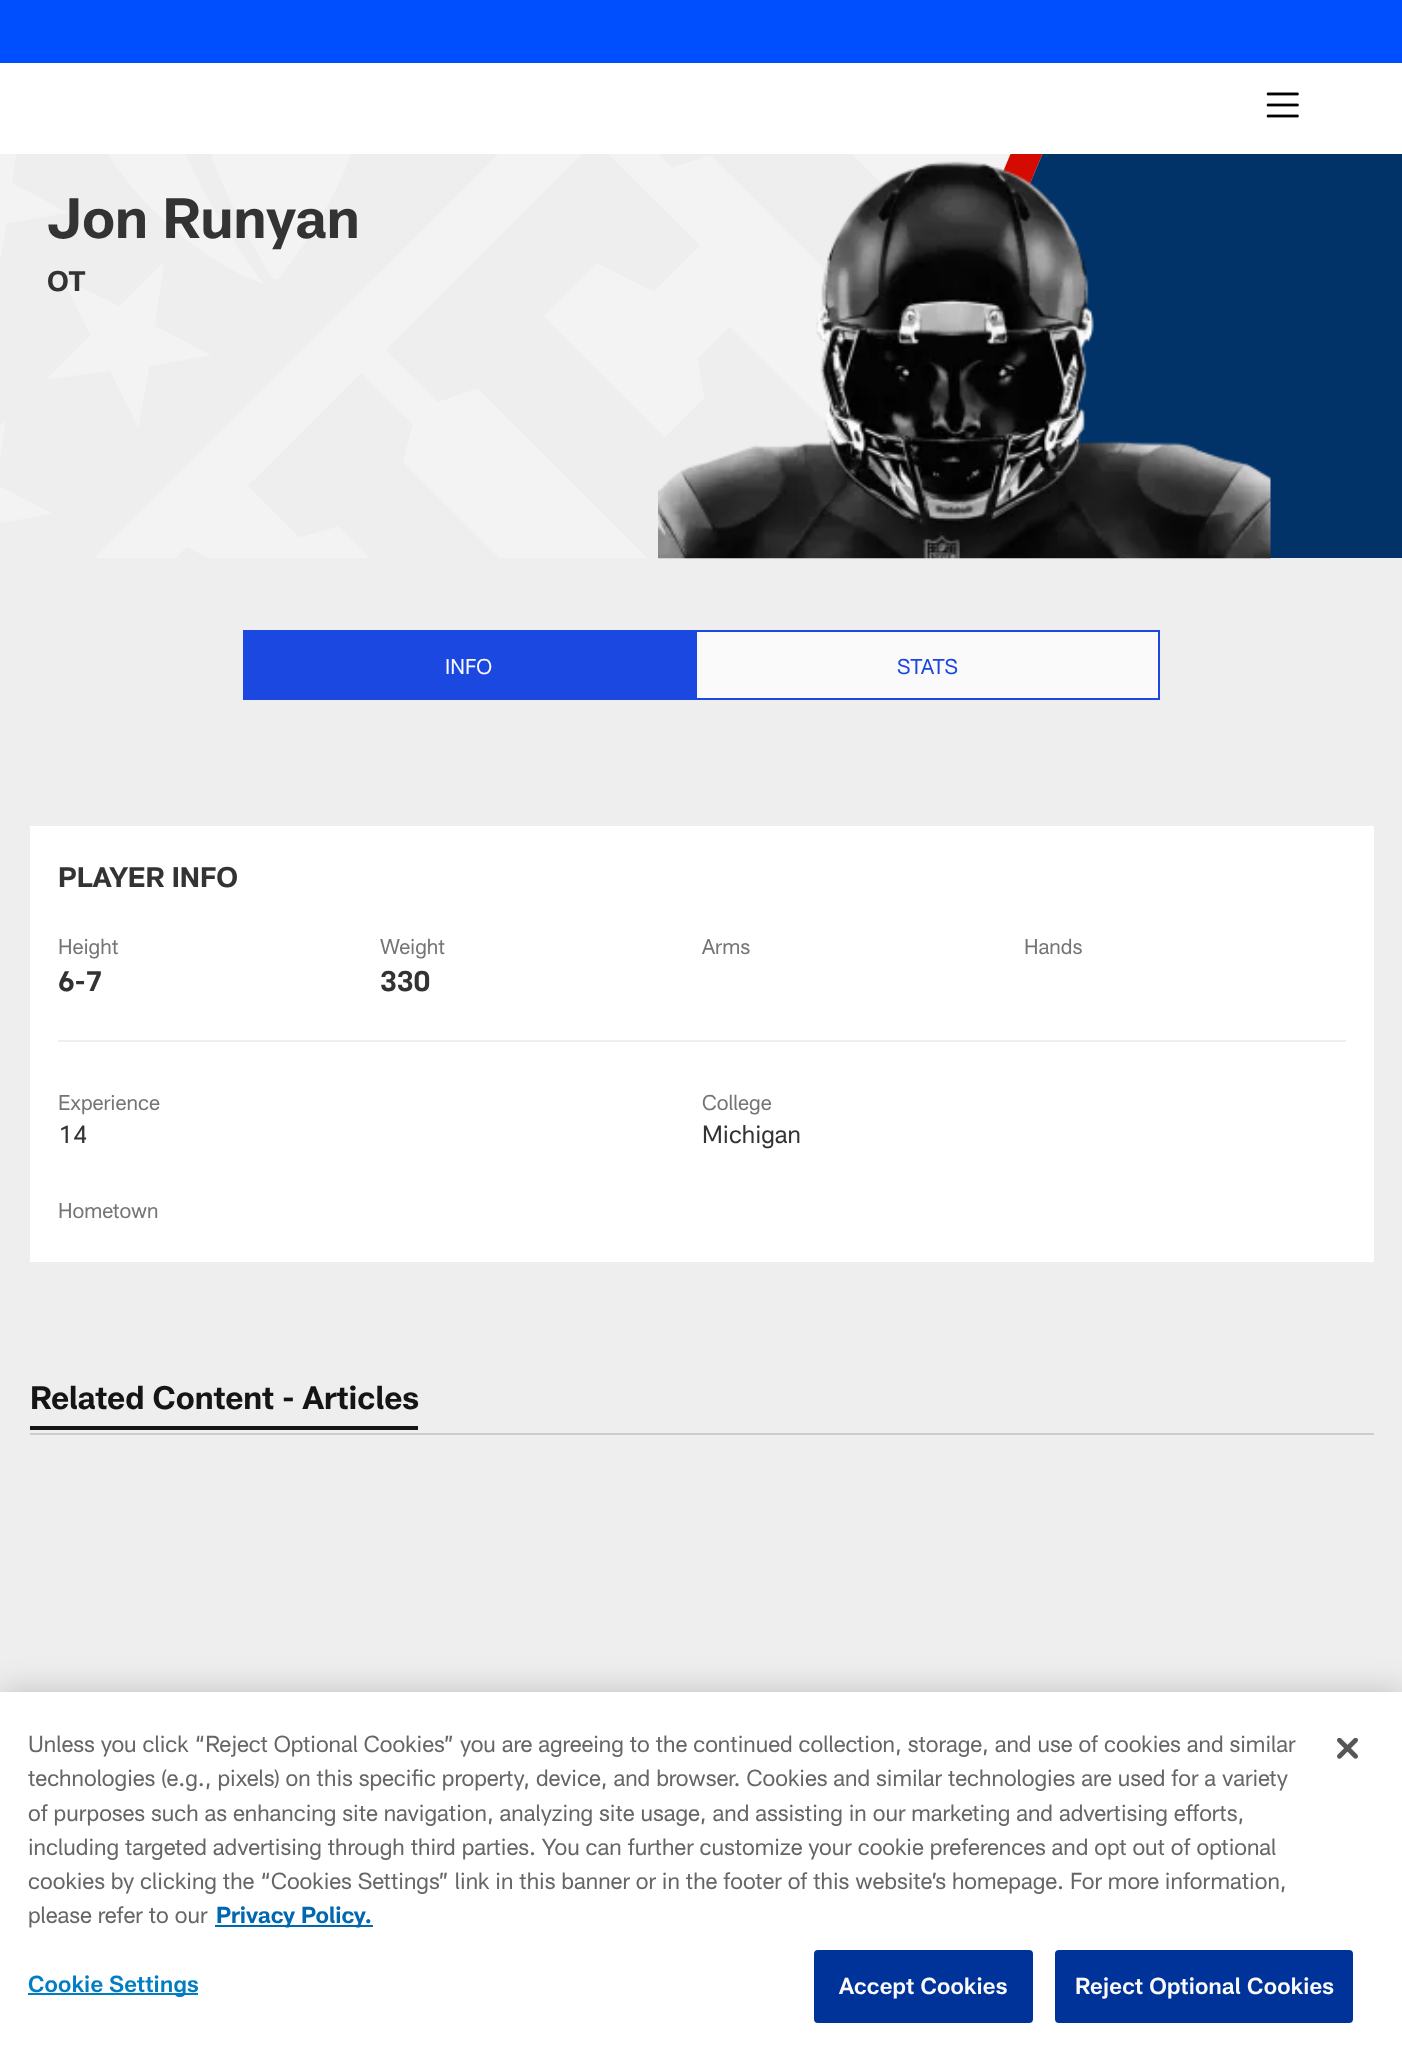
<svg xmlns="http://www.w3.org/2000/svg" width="1402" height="2056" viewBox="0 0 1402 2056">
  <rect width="100%" height="100%" fill="rgb(238,238,238)"/>
  <rect x="0" y="0" width="1402" height="63" fill="rgb(0,79,255)"/>
  <image x="0" y="154" width="1043" height="404" href="pic2.png"/>
  <path d="M1060 112L873 558H842L1028 112Z" fill="rgb(213,10,0)"/>
  <path d="M873 558L1060 112H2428V558Z" fill="rgb(1,51,105)"/>
  <rect x="0" y="63" width="1402" height="91" fill="rgb(255,255,255)"/>
  <image x="1266" y="92" width="33" height="26" href="pic1.png"/>
  <image x="658" y="161" width="613" height="398" href="pic3.png"/>
  <text x="47" y="238" font-family="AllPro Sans" font-size="56" font-weight="bold" fill="rgb(51,51,51)">Jon Runyan</text>
  <text x="47" y="291" font-family="AllPro Sans" font-size="28" font-weight="bold" fill="rgb(51,51,51)">OT</text>
  <rect x="243" y="630" width="452" height="70" fill="rgb(27,72,224)"/>
  <text x="445" y="674" font-family="AllPro Sans" font-size="21" fill="rgb(250,250,250)">INFO</text>
  <rect x="696" y="631" width="463" height="68" fill="rgb(250,250,250)" stroke="rgb(27,72,224)" stroke-width="2"/>
  <text x="897" y="674" font-family="AllPro Sans" font-size="21" fill="rgb(27,72,224)">STATS</text>
  <rect x="30" y="826" width="1344" height="436" fill="rgb(255,255,255)"/>
  <text x="58" y="887" font-family="AllPro Sans" font-size="28" font-weight="bold" fill="rgb(51,51,51)">PLAYER INFO</text>
  <rect x="58" y="1040" width="1288" height="2" fill="rgb(238,238,238)"/>
  <text x="58" y="954" font-family="AllPro Sans" font-size="21" fill="rgb(117,117,117)">Height</text>
  <text x="58" y="991" font-family="AllPro Sans" font-size="28" font-weight="bold" fill="rgb(51,51,51)">6-7</text>
  <text x="380" y="954" font-family="AllPro Sans" font-size="21" fill="rgb(117,117,117)">Weight</text>
  <text x="380" y="991" font-family="AllPro Sans" font-size="28" font-weight="bold" fill="rgb(51,51,51)">330</text>
  <g font-family="AllPro Sans" font-size="21" fill="rgb(117,117,117)">
    <text x="702" y="954">Arms</text>
    <text x="1024" y="954">Hands</text>
    <text x="58" y="1110">Experience</text>
  </g>
  <text x="58" y="1143" font-family="AllPro Sans" font-size="24.5" fill="rgb(51,51,51)">14</text>
  <text x="702" y="1110" font-family="AllPro Sans" font-size="21" fill="rgb(117,117,117)">College</text>
  <text x="702" y="1143" font-family="AllPro Sans" font-size="24.5" fill="rgb(51,51,51)">Michigan</text>
  <text x="58" y="1218" font-family="AllPro Sans" font-size="21" fill="rgb(117,117,117)">Hometown</text>
  <rect x="30" y="1433" width="1344" height="2" fill="rgb(204,204,204)"/>
  <rect x="30" y="1426" width="388" height="4" fill="rgb(21,21,21)"/>
  <text x="30" y="1409" font-family="AllPro Sans" font-size="32" font-weight="bold" fill="rgb(21,21,21)">Related Content - Articles</text>
  <rect x="0" y="1692" width="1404" height="364" fill="rgba(0,0,0,0.2)" filter="blur(16px)"/>
  <rect x="0" y="1692" width="1402" height="364" fill="rgb(255,255,255)"/>
  <g font-family="AllPro Sans" font-size="22.75" fill="rgb(102,102,102)">
    <text>
      <tspan x="28" y="1752">Unless you click “Reject Optional Cookies” you are agreeing to the continued collection, storage, and use of cookies and similar</tspan>
      <tspan x="28" y="1786">technologies (e.g., pixels) on this specific property, device, and browser. Cookies and similar technologies are used for a variety</tspan>
      <tspan x="28" y="1821">of purposes such as enhancing site navigation, analyzing site usage, and assisting in our marketing and advertising efforts,</tspan>
      <tspan x="28" y="1855">including targeted advertising through third parties. You can further customize your cookie preferences and opt out of optional</tspan>
      <tspan x="28" y="1889">cookies by clicking the “Cookies Settings” link in this banner or in the footer of this website’s homepage. For more information,</tspan>
      <tspan x="28" y="1923">please refer to our</tspan>
    </text>
  </g>
  <rect x="215" y="1925" width="158" height="2" fill="rgb(0,103,177)"/>
  <text x="216" y="1923" font-family="AllPro Sans" font-size="22.75" font-weight="bold" fill="rgb(0,103,177)">Privacy Policy.</text>
  <rect x="28" y="1993" width="170" height="2" fill="rgb(0,125,195)"/>
  <text x="28" y="1992" font-family="AllPro Sans" font-size="22.75" font-weight="600" letter-spacing="0.25" fill="rgb(0,125,195)">Cookie Settings</text>
  <rect x="815" y="1951" width="217" height="71" rx="3" fill="rgb(0,51,153)" stroke="rgb(0,51,153)" stroke-width="2"/>
  <text x="839" y="1994" font-family="AllPro Sans" font-size="22.75" font-weight="600" letter-spacing="0.25" fill="rgb(250,250,250)">Accept Cookies</text>
  <rect x="1056" y="1951" width="296" height="71" rx="3" fill="rgb(0,51,153)" stroke="rgb(0,51,153)" stroke-width="2"/>
  <text x="1075" y="1994" font-family="AllPro Sans" font-size="22.75" font-weight="600" letter-spacing="0.25" fill="rgb(250,250,250)">Reject Optional Cookies</text>
  <image x="1337" y="1738" width="21" height="21" href="pic4.png"/>
</svg>
